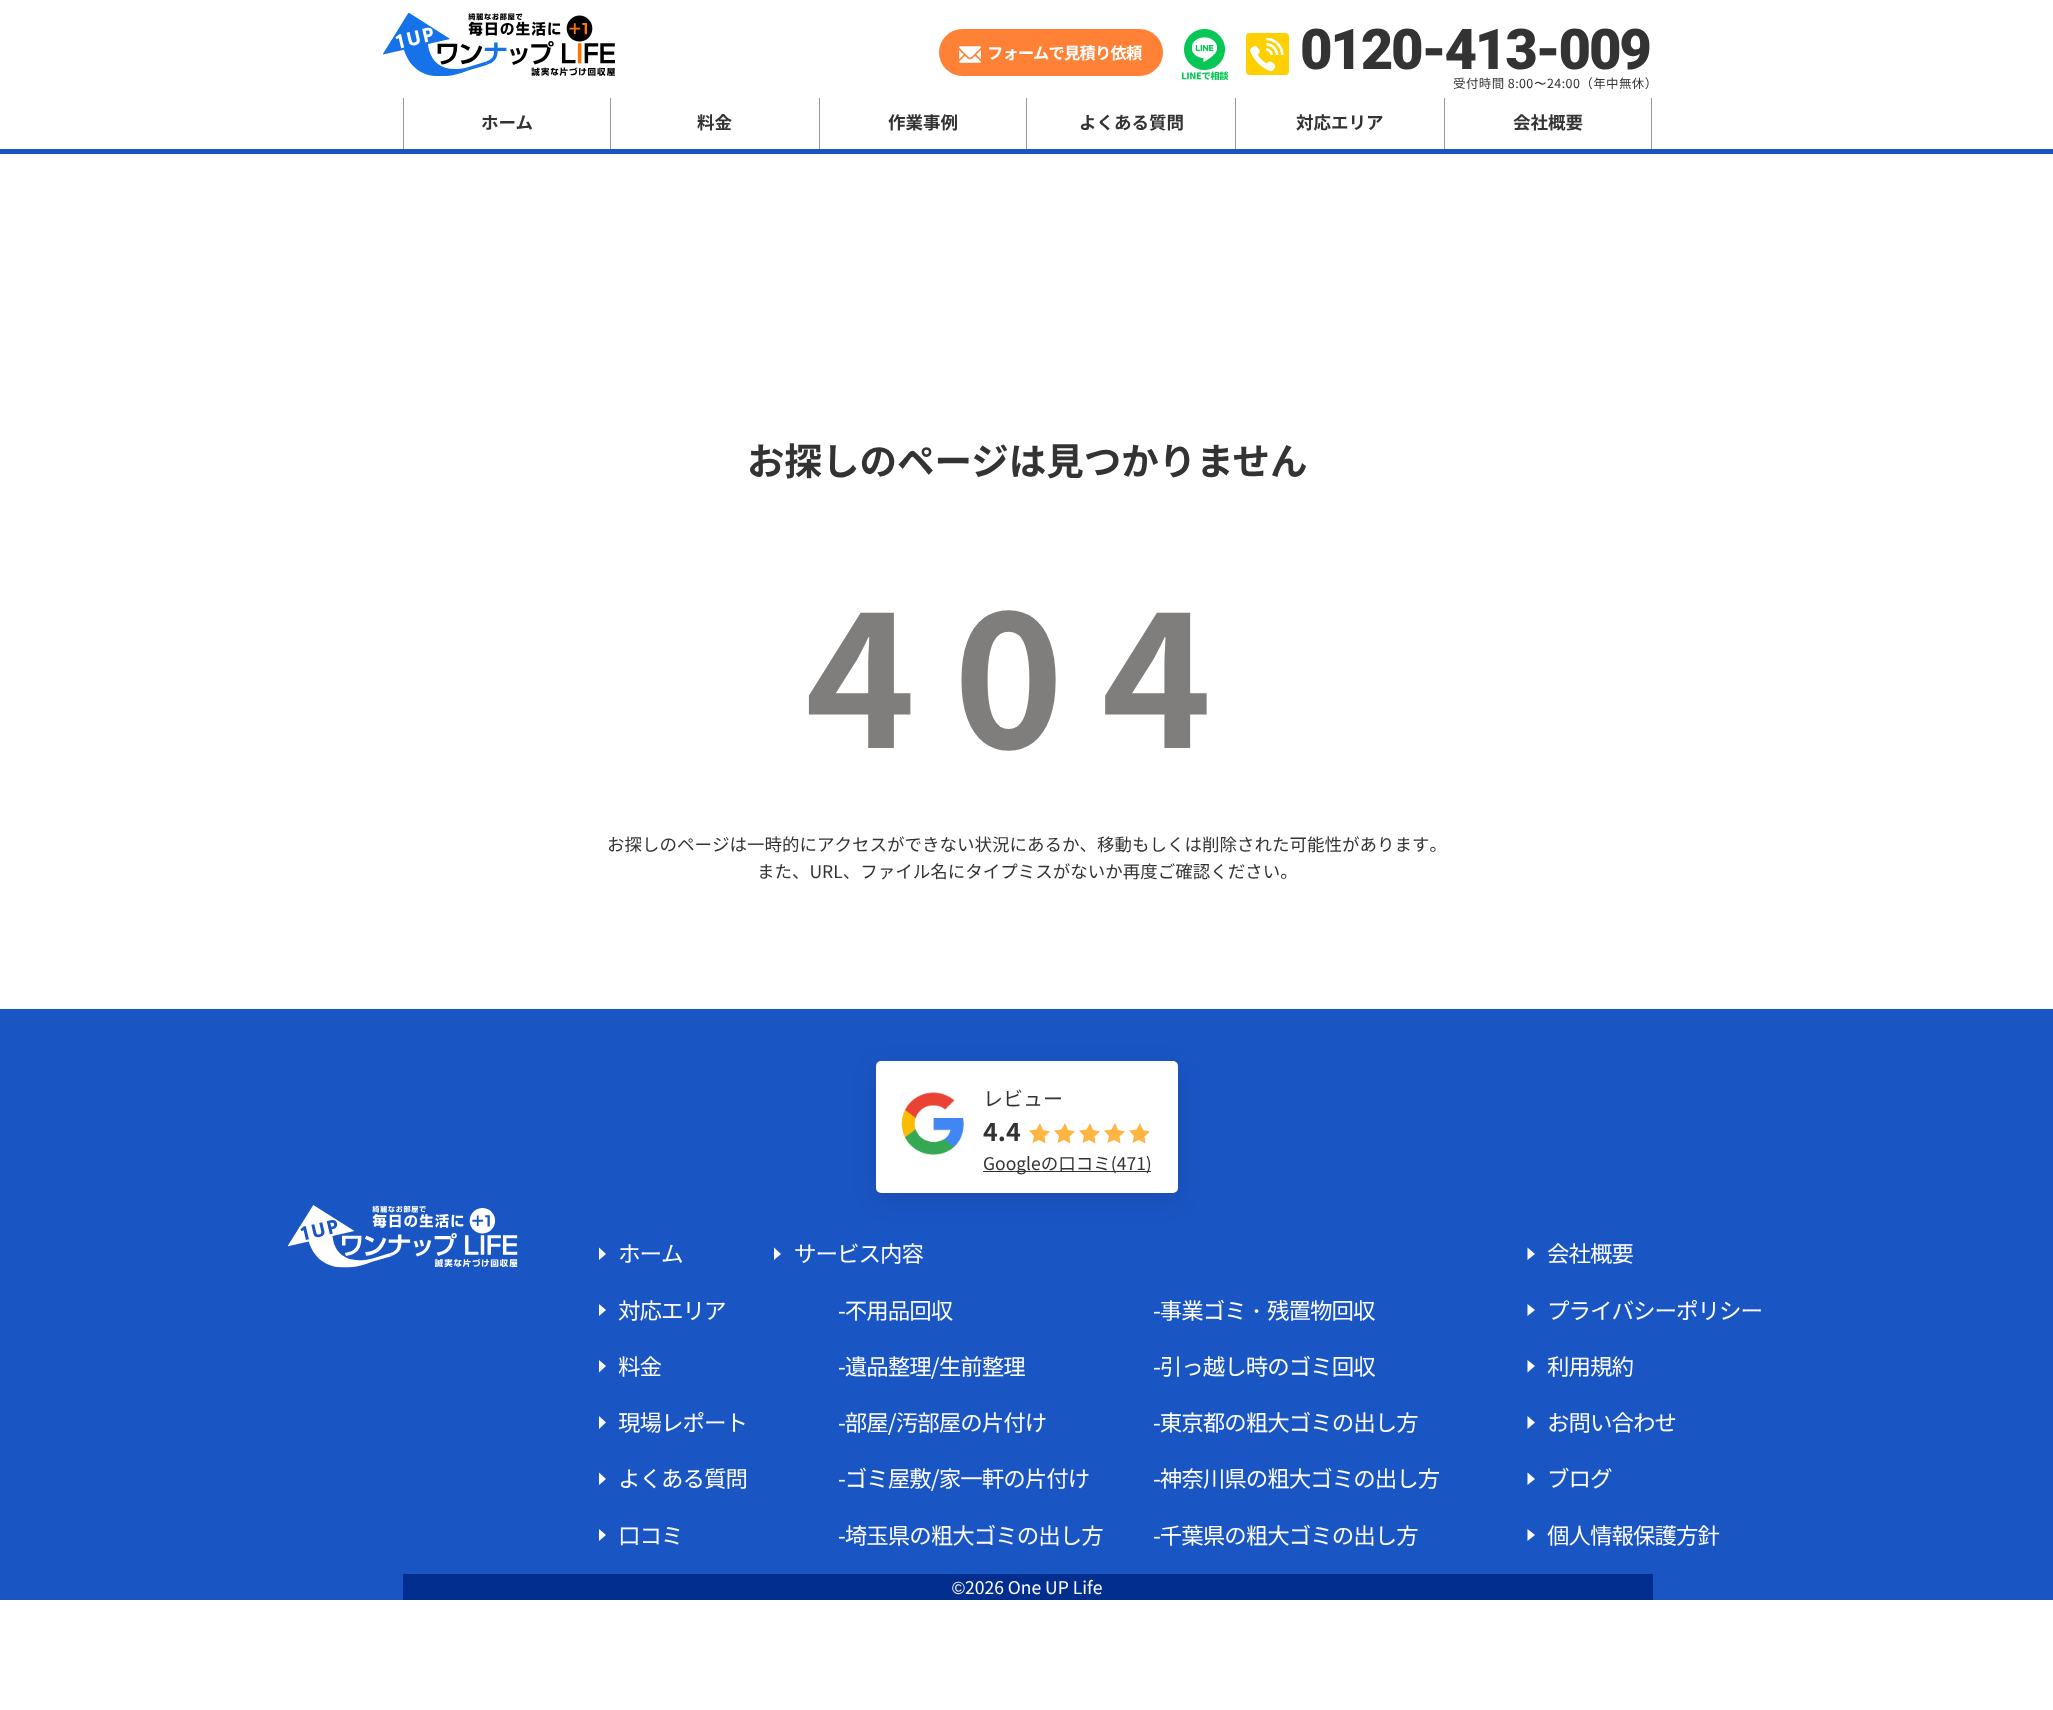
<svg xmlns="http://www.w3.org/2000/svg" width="2053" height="1710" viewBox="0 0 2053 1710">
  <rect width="100%" height="100%" fill="rgb(255,255,255)"/>
  <rect x="0" y="149" width="2053" height="5" fill="rgb(26,85,196)"/>
  <image x="383" y="13" width="232" height="63" href="pic1.png"/>
  <rect x="939" y="29" width="224" height="47" rx="23.5" fill="rgb(255,129,53)"/>
  <image x="959" y="46" width="22" height="17" href="pic2.png"/>
  <text x="987" y="59" font-family="Noto Sans CJK JP" font-size="16.25" font-weight="bold" letter-spacing="-0.75" fill="rgb(255,255,255)">フォームで見積り依頼</text>
  <image x="1181" y="29" width="48" height="52" href="pic3.png"/>
  <rect x="1246" y="33" width="43" height="42" rx="4" fill="rgb(255,208,0)"/>
  <image x="1250" y="38" width="34" height="33" href="pic4.png"/>
  <text x="1300" y="69" font-family="Roboto" font-size="56.25" font-weight="900" letter-spacing="-2.25" fill="rgb(51,51,51)">0120-413-009</text>
  <text x="1453" y="88" font-family="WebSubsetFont" font-size="12.5" letter-spacing="0.4" fill="rgb(51,51,51)">受付時間 8:00</text>
  <text x="1534" y="88" font-family="WenQuanYi Zen Hei" font-size="12.5" font-weight="500" letter-spacing="0.4" fill="rgb(51,51,51)">〜</text>
  <text x="1547" y="88" font-family="WebSubsetFont" font-size="12.5" letter-spacing="0.4" fill="rgb(51,51,51)">24:00（年中無休）</text>
  <rect x="403" y="98" width="1" height="51" fill="rgb(153,153,153)"/>
  <text x="481" y="129" font-family="Noto Sans CJK JP" font-size="17.5" font-weight="bold" fill="rgb(51,51,51)">ホーム</text>
  <rect x="610" y="98" width="1" height="51" fill="rgb(153,153,153)"/>
  <text x="697" y="129" font-family="Noto Sans CJK JP" font-size="17.5" font-weight="bold" fill="rgb(51,51,51)">料金</text>
  <rect x="819" y="98" width="1" height="51" fill="rgb(153,153,153)"/>
  <text x="888" y="129" font-family="Noto Sans CJK JP" font-size="17.5" font-weight="bold" fill="rgb(51,51,51)">作業事例</text>
  <rect x="1026" y="98" width="1" height="51" fill="rgb(153,153,153)"/>
  <text x="1079" y="129" font-family="Noto Sans CJK JP" font-size="17.5" font-weight="bold" fill="rgb(51,51,51)">よくある質問</text>
  <rect x="1235" y="98" width="1" height="51" fill="rgb(153,153,153)"/>
  <text x="1296" y="129" font-family="Noto Sans CJK JP" font-size="17.5" font-weight="bold" fill="rgb(51,51,51)">対応エリア</text>
  <rect x="1651" y="98" width="1" height="51" fill="rgb(153,153,153)"/>
  <rect x="1444" y="98" width="1" height="51" fill="rgb(153,153,153)"/>
  <text x="1513" y="129" font-family="Noto Sans CJK JP" font-size="17.5" font-weight="bold" fill="rgb(51,51,51)">会社概要</text>
  <text x="747" y="475" font-family="Noto Sans CJK JP" font-size="37.5" font-weight="bold" fill="rgb(51,51,51)">お探しのページは見つかりません</text>
  <text x="805" y="748" font-family="Noto Sans CJK JP" font-size="187.5" font-weight="bold" letter-spacing="37.5" fill="rgb(128,125,125)">404</text>
  <g font-family="WebSubsetFont" font-size="17.5" fill="rgb(51,51,51)">
    <text x="607" y="851">お探しのページは一時的にアクセスができない状況にあるか、移動もしくは削除された可能性があります。</text>
    <text x="757" y="878">また、URL、ファイル名にタイプミスがないか再度ご確認ください。</text>
  </g>
  <rect x="0" y="1009" width="2053" height="591" fill="rgb(26,85,196)"/>
  <rect x="876" y="1068" width="302" height="131" rx="5" fill="rgba(0,0,0,0.1)" filter="blur(12.5px)"/>
  <rect x="876" y="1061" width="302" height="132" rx="5" fill="rgb(255,255,255)"/>
  <image x="901" y="1092" width="63" height="63" href="pic5.png"/>
  <text x="983" y="1106" font-family="WebSubsetFont" font-size="20" fill="rgb(51,51,51)">レビュー</text>
  <text x="983" y="1141" font-family="Noto Sans CJK JP" font-size="25" font-weight="bold" fill="rgb(51,51,51)">4.4</text>
  <path d="M1039 1140L1032.5 1143L1034 1136L1029 1130.5L1036.5 1129.5L1040 1123L1043 1130L1050 1131.5L1044.5 1136.5L1045.5 1143.5ZM1064 1140L1057.5 1143L1059 1136L1054 1130.5L1061.5 1129.5L1065 1123L1068 1130L1075 1131.5L1069.5 1136.5L1070.5 1143.5Z" fill="rgb(255,181,66)"/>
  <path d="M1089 1140L1082.5 1143L1084 1136L1079 1130.5L1086.5 1129.5L1090 1123L1093 1130L1100 1131.5L1094.5 1136.5L1095.5 1143.5ZM1114 1140L1107.5 1143L1109 1136L1104 1130.5L1111.5 1129.5L1115 1123L1118 1130L1125 1131.5L1119.5 1136.5L1120.5 1143.5Z" fill="rgb(255,181,66)"/>
  <path d="M1139 1140L1132.5 1143L1134 1136L1129 1130.5L1136.5 1129.5L1140 1123L1143 1130L1150 1131.5L1144.5 1136.5L1145.5 1143.5Z" fill="rgb(255,181,66)"/>
  <rect x="983" y="1171" width="168" height="1" fill="rgb(51,51,51)"/>
  <text x="983" y="1170" font-family="WebSubsetFont" font-size="17.5" fill="rgb(51,51,51)">Googleの口コミ(471)</text>
  <image x="288" y="1205" width="230" height="63" href="pic6.png"/>
  <path d="M599 1260V1247.5L606 1254Z" fill="rgb(255,255,255)"/>
  <text x="618" y="1262" font-family="WebSubsetFont" font-size="22.5" letter-spacing="-1" fill="rgb(255,255,255)">ホーム</text>
  <path d="M599 1316V1304L606 1310Z" fill="rgb(255,255,255)"/>
  <text x="618" y="1319" font-family="WebSubsetFont" font-size="22.5" letter-spacing="-1" fill="rgb(255,255,255)">対応エリア</text>
  <path d="M599 1372.5V1360L606 1366Z" fill="rgb(255,255,255)"/>
  <text x="618" y="1375" font-family="WebSubsetFont" font-size="22.5" letter-spacing="-1" fill="rgb(255,255,255)">料金</text>
  <path d="M599 1429V1416L606 1422.5Z" fill="rgb(255,255,255)"/>
  <text x="618" y="1431" font-family="WebSubsetFont" font-size="22.5" letter-spacing="-1" fill="rgb(255,255,255)">現場レポート</text>
  <path d="M599 1485V1472.5L606 1479Z" fill="rgb(255,255,255)"/>
  <text x="618" y="1487" font-family="WebSubsetFont" font-size="22.5" letter-spacing="-1" fill="rgb(255,255,255)">よくある質問</text>
  <path d="M599 1541V1529L606 1535Z" fill="rgb(255,255,255)"/>
  <text x="618" y="1544" font-family="WebSubsetFont" font-size="22.5" letter-spacing="-1" fill="rgb(255,255,255)">口コミ</text>
  <path d="M774 1260V1247.5L781 1254Z" fill="rgb(255,255,255)"/>
  <g font-family="WebSubsetFont" font-size="22.5" letter-spacing="-1" fill="rgb(255,255,255)">
    <text x="794" y="1262">サービス内容</text>
    <text x="838" y="1319">-不用品回収</text>
    <text x="1153" y="1319">-事業ゴミ</text>
  </g>
  <text x="1245" y="1319" font-family="WenQuanYi Zen Hei" font-size="22.5" font-weight="500" letter-spacing="-1" fill="rgb(255,255,255)">・</text>
  <g font-family="WebSubsetFont" font-size="22.5" letter-spacing="-1" fill="rgb(255,255,255)">
    <text x="1267" y="1319">残置物回収</text>
    <text x="838" y="1375">-遺品整理/生前整理</text>
    <text x="1153" y="1375">-引っ越し時のゴミ回収</text>
    <text x="838" y="1431">-部屋/汚部屋の片付け</text>
    <text x="1153" y="1431">-東京都の粗大ゴミの出し方</text>
    <text x="838" y="1487">-ゴミ屋敷/家一軒の片付け</text>
    <text x="1153" y="1487">-神奈川県の粗大ゴミの出し方</text>
    <text x="838" y="1544">-埼玉県の粗大ゴミの出し方</text>
    <text x="1153" y="1544">-千葉県の粗大ゴミの出し方</text>
  </g>
  <path d="M1527.5 1260V1247.5L1535 1254Z" fill="rgb(255,255,255)"/>
  <text x="1547" y="1262" font-family="WebSubsetFont" font-size="22.5" letter-spacing="-1" fill="rgb(255,255,255)">会社概要</text>
  <path d="M1527.5 1316V1304L1535 1310Z" fill="rgb(255,255,255)"/>
  <text x="1547" y="1319" font-family="WebSubsetFont" font-size="22.5" letter-spacing="-1" fill="rgb(255,255,255)">プライバシーポリシー</text>
  <path d="M1527.5 1372.5V1360L1535 1366Z" fill="rgb(255,255,255)"/>
  <text x="1547" y="1375" font-family="WebSubsetFont" font-size="22.5" letter-spacing="-1" fill="rgb(255,255,255)">利用規約</text>
  <path d="M1527.5 1429V1416L1535 1422.5Z" fill="rgb(255,255,255)"/>
  <text x="1547" y="1431" font-family="WebSubsetFont" font-size="22.5" letter-spacing="-1" fill="rgb(255,255,255)">お問い合わせ</text>
  <path d="M1527.5 1485V1472.5L1535 1479Z" fill="rgb(255,255,255)"/>
  <text x="1547" y="1487" font-family="WebSubsetFont" font-size="22.5" letter-spacing="-1" fill="rgb(255,255,255)">ブログ</text>
  <path d="M1527.5 1541V1529L1535 1535Z" fill="rgb(255,255,255)"/>
  <text x="1547" y="1544" font-family="WebSubsetFont" font-size="22.5" letter-spacing="-1" fill="rgb(255,255,255)">個人情報保護方針</text>
  <rect x="403" y="1574" width="1250" height="26" fill="rgb(2,46,143)"/>
  <text x="952" y="1594" font-family="Liberation Sans" font-size="17.5" fill="rgb(255,255,255)">©</text>
  <text x="965" y="1594" font-family="WebSubsetFont" font-size="17.5" fill="rgb(255,255,255)">2026 One UP Life</text>
</svg>
